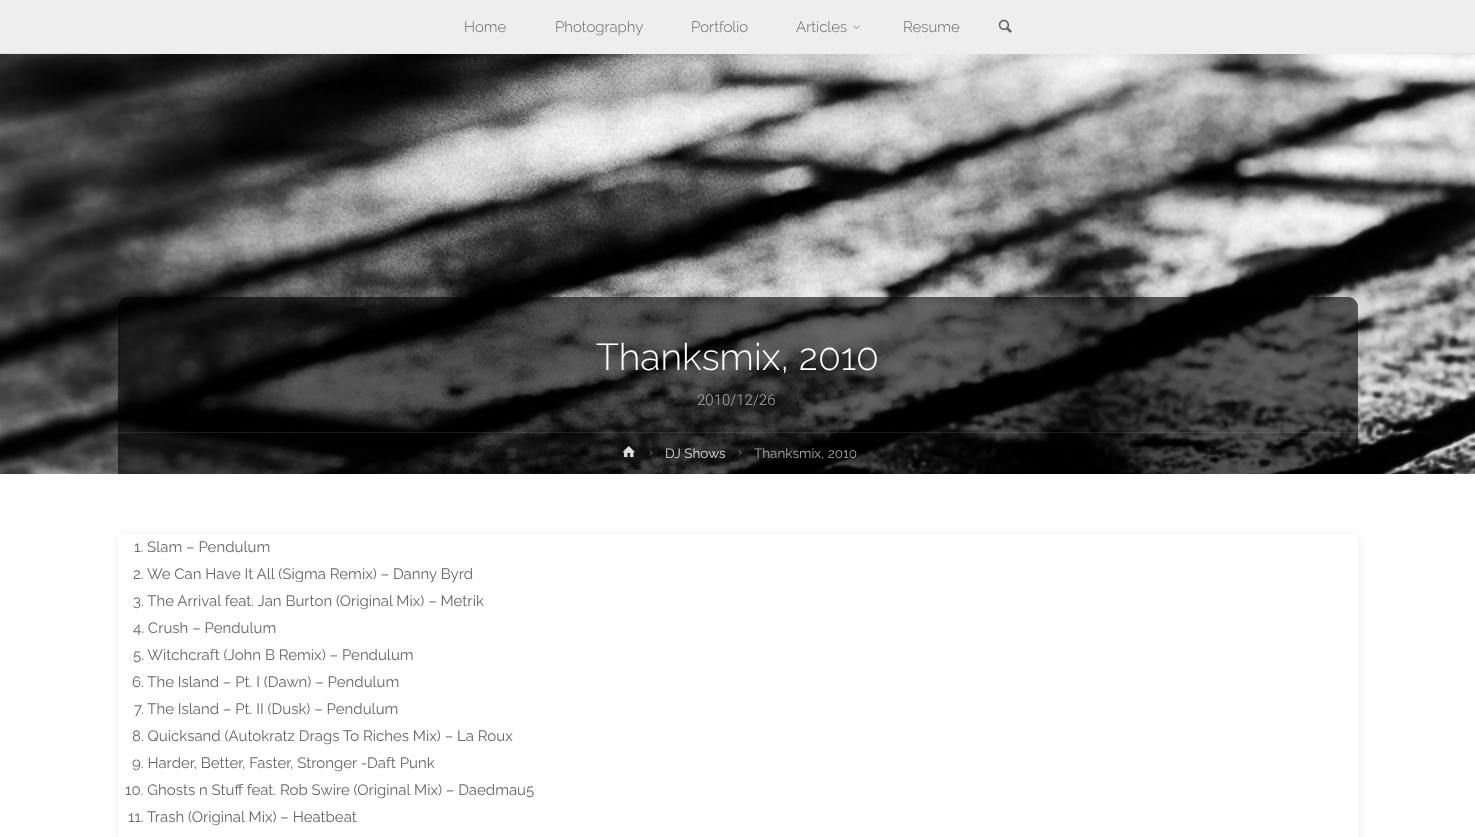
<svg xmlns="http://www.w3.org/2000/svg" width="1475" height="837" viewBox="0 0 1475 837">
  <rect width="100%" height="100%" fill="rgb(255,255,255)"/>
  <image x="0" y="54" width="1475" height="420" href="pic3.png"/>
  <rect x="-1" y="-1" width="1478" height="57" fill="rgba(0,0,0,0.05)" filter="blur(4px)"/>
  <rect x="0" y="0" width="1475" height="53" fill="rgb(238,238,238)"/>
  <rect x="0" y="53" width="1475" height="1" fill="rgb(226,226,226)"/>
  <g font-family="Raleway" font-size="15" font-weight="300" fill="rgb(102,102,102)">
    <text x="464" y="32">Home</text>
    <text x="555" y="32">Photography</text>
    <text x="691" y="32">Portfolio</text>
    <text x="796" y="32">Articles</text>
  </g>
  <image x="853" y="25" width="7" height="4" href="pic1.png"/>
  <text x="903" y="32" font-family="Raleway" font-size="15" font-weight="300" fill="rgb(102,102,102)">Resume</text>
  <image x="998" y="19" width="14" height="14" href="pic2.png"/>
  <rect x="88" y="53" width="1300" height="1" fill="rgb(238,238,238)"/>
  <path d="M128 297H1348C1353.5 297 1358 301.5 1358 307V474H118V307C118 301.5 122.5 297 128 297Z" fill="rgba(0,0,0,0.6)"/>
  <text x="596" y="370" font-family="Raleway" font-size="37.5" font-weight="300" fill="rgb(255,255,255)">Thanksmix, 2010</text>
  <text x="697" y="405" font-family="Roboto" font-size="15" font-weight="300" fill="rgb(171,171,171)">2010/12/26</text>
  <rect x="125" y="432" width="1233" height="42" fill="rgba(0,0,0,0.05)"/>
  <rect x="118" y="432" width="1240" height="1" fill="rgba(255,255,255,0.1)"/>
  <image x="622" y="446" width="13" height="12" href="pic4.png"/>
  <image x="649" y="450" width="4" height="6" href="pic5.png"/>
  <text x="665" y="458" font-family="Raleway" font-size="13.5" fill="rgb(221,221,221)">DJ Shows</text>
  <image x="738" y="450" width="4" height="6" href="pic6.png"/>
  <text x="754" y="458" font-family="Raleway" font-size="13.5" fill="rgb(171,171,171)">Thanksmix, 2010</text>
  <rect x="117" y="533" width="1243" height="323" rx="7" fill="rgba(0,0,0,0.05)" filter="blur(4px)"/>
  <rect x="118" y="534" width="1240" height="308" rx="5" fill="rgb(255,255,255)"/>
  <g font-family="Raleway" font-size="15" fill="rgb(102,102,102)">
    <text x="134" y="552">1. Slam – Pendulum</text>
    <text>
      <tspan x="133" y="579">2. We Can Have It All (Sigma Remix) – Danny Byrd</tspan>
      <tspan x="133" y="606">3. The Arrival feat. Jan Burton (Original Mix) – Metrik</tspan>
      <tspan x="133" y="633">4. Crush – Pendulum</tspan>
      <tspan x="133" y="660">5. Witchcraft (John B Remix) – Pendulum</tspan>
    </text>
    <text x="132" y="687">6. The Island – Pt. I (Dawn) – Pendulum</text>
    <text x="134" y="714">7. The Island – Pt. II (Dusk) – Pendulum</text>
    <text>
      <tspan x="132" y="741">8. Quicksand (Autokratz Drags To Riches Mix) – La Roux</tspan>
      <tspan x="132" y="768">9. Harder, Better, Faster, Stronger -Daft Punk</tspan>
    </text>
    <text x="125" y="795">10. Ghosts n Stuff feat. Rob Swire (Original Mix) – Daedmau5</text>
    <text x="128" y="822">11. Trash (Original Mix) – Heatbeat</text>
  </g>
</svg>
